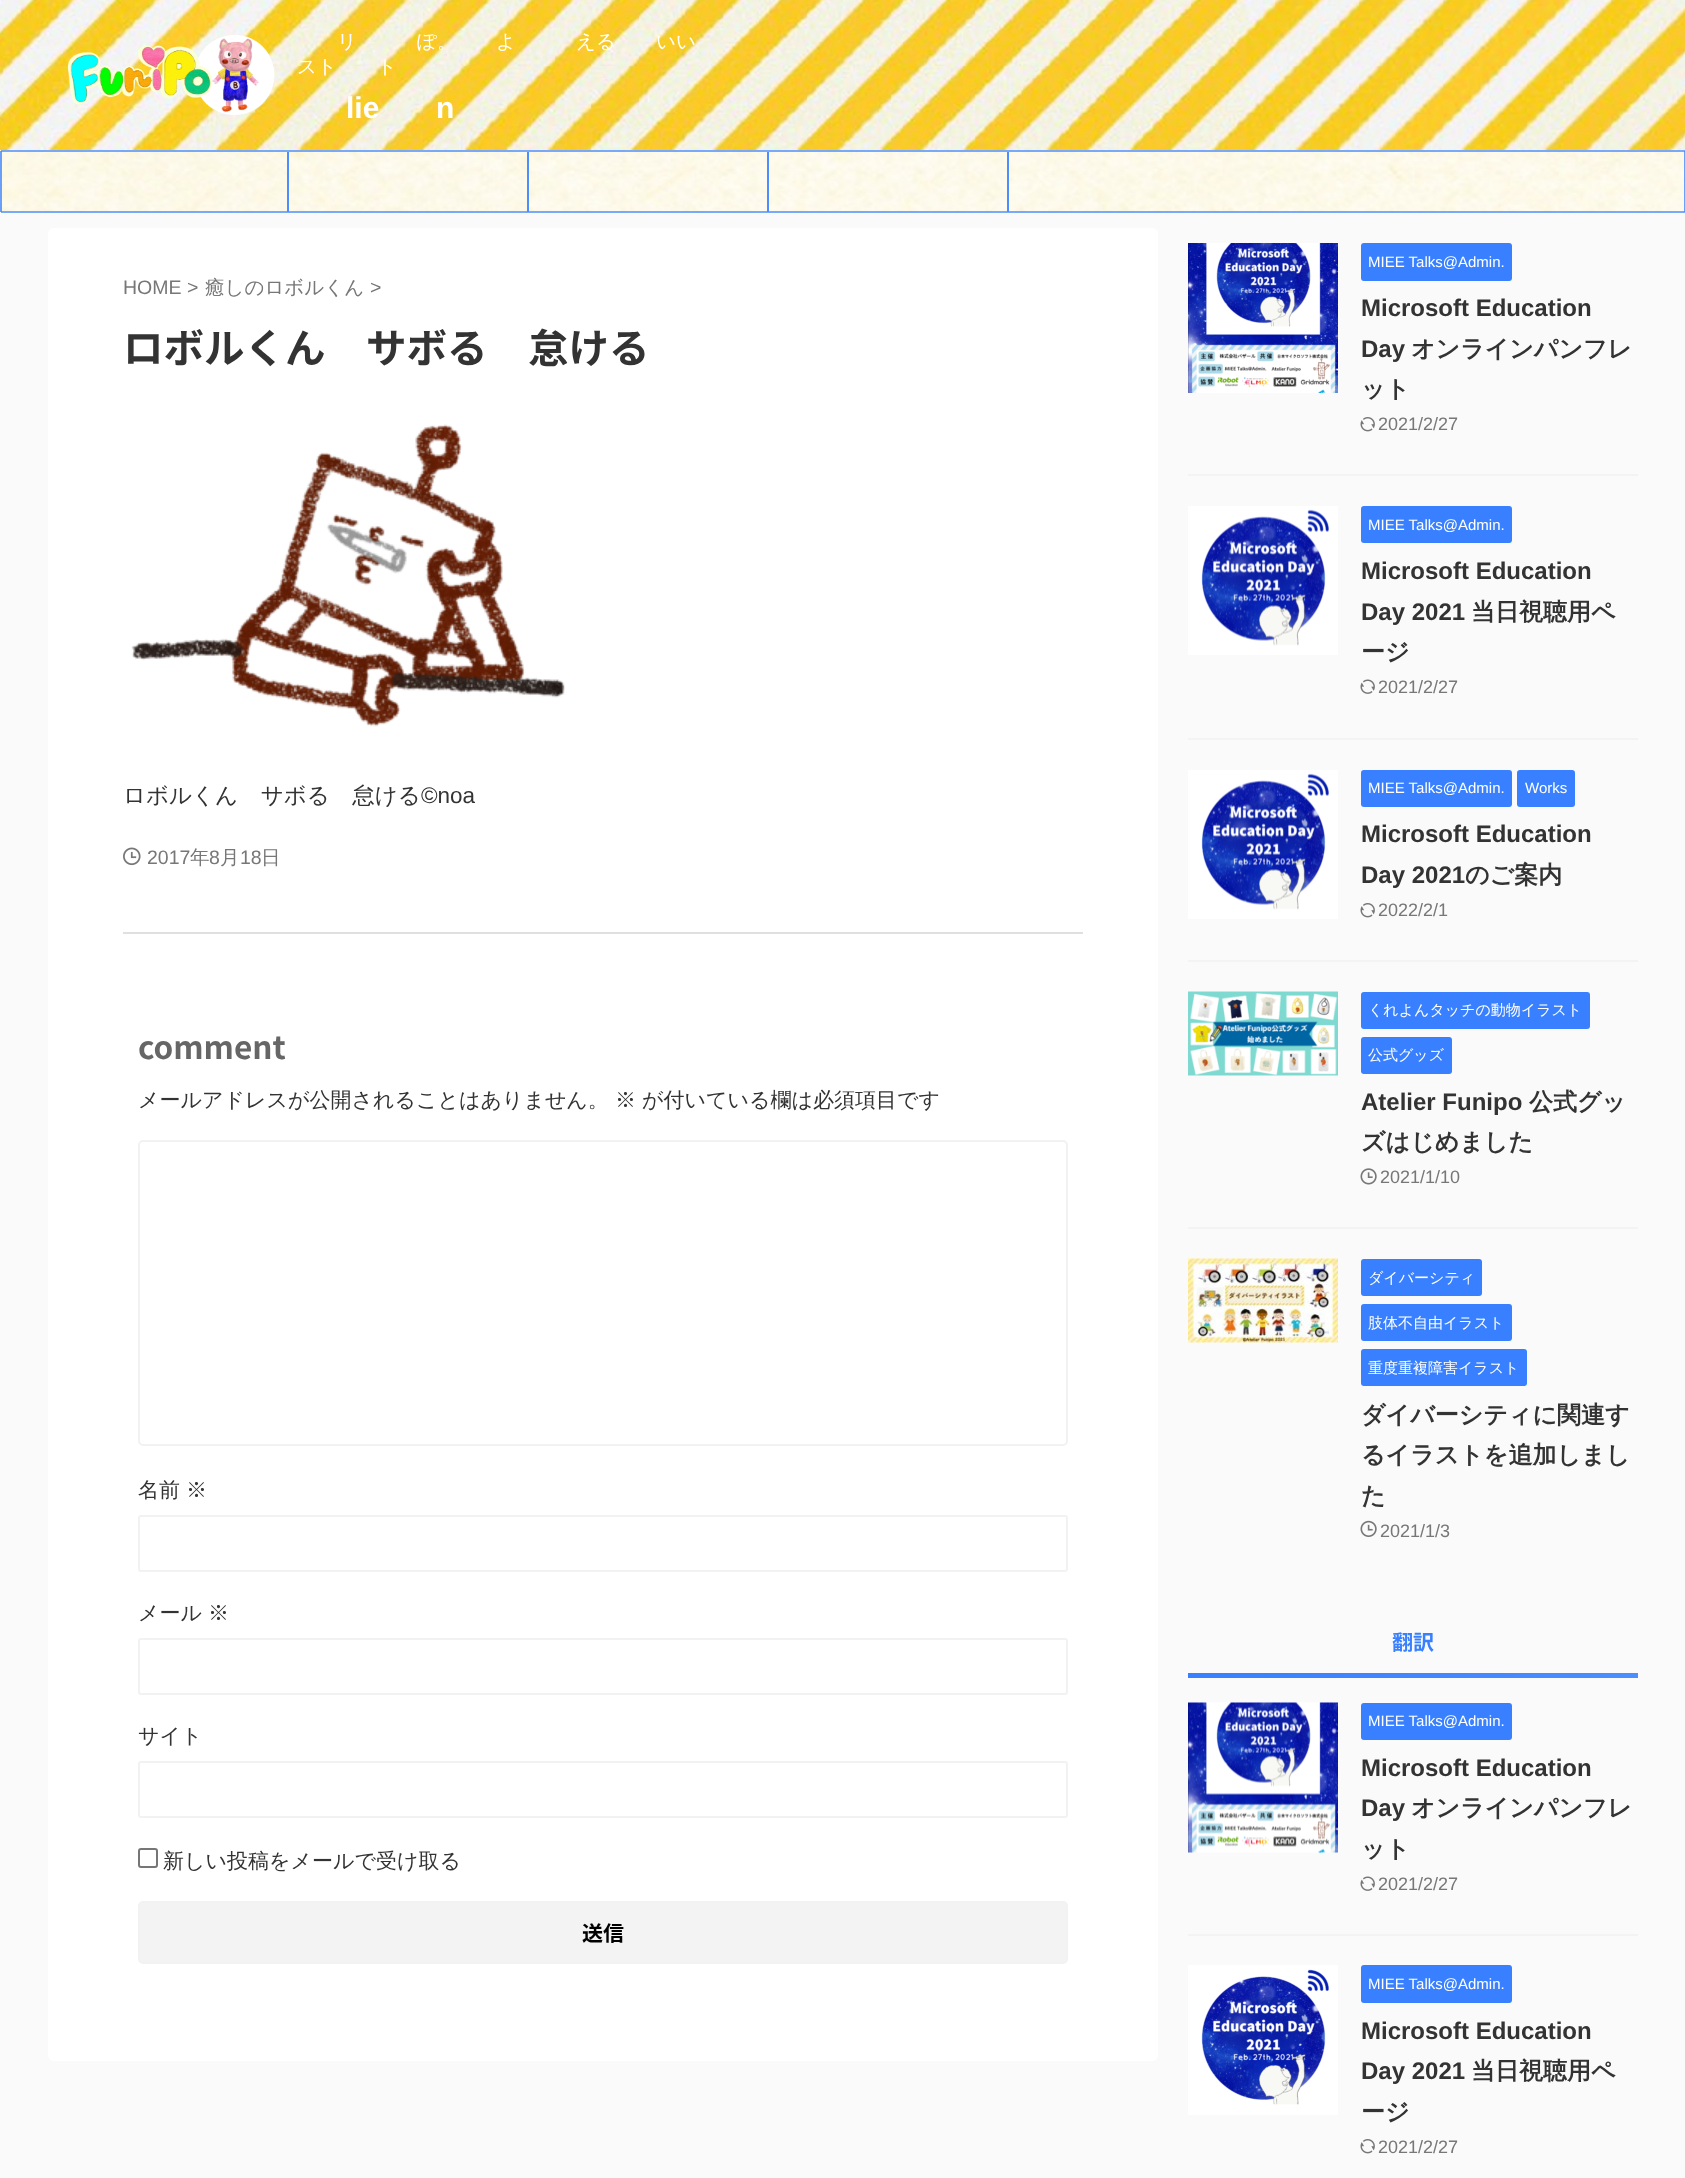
<svg xmlns="http://www.w3.org/2000/svg" width="1685" height="2178" viewBox="0 0 1685 2178">
  <defs>
    <linearGradient id="g1" gradientUnits="userSpaceOnUse" x1="1638" y1="1675" x2="1188" y2="1675"><stop offset="0" stop-color="rgb(76,141,255)"/><stop offset="1" stop-color="rgb(56,128,255)"/></linearGradient>
  </defs>
  <rect width="100%" height="100%" fill="rgb(250,250,250)"/>
  <image x="0" y="0" width="1685" height="150" href="pic1.png"/>
  <image x="67" y="35" width="208" height="80" href="pic2.png"/>
  <g font-family="WenQuanYi Zen Hei" font-size="19.5" font-weight="500" fill="rgb(255,255,255)">
    <text x="337" y="48">リ</text>
    <text x="417" y="48">ぽ。</text>
    <text x="496" y="48">よ</text>
    <text x="576" y="48">える</text>
    <text x="656" y="48">いい</text>
    <text x="297" y="73">スト</text>
    <text x="377" y="73">ト</text>
  </g>
  <g font-family="Liberation Sans" font-size="30" font-weight="bold" fill="rgb(255,255,255)">
    <text x="346" y="118">lie</text>
    <text x="436" y="118">n</text>
  </g>
  <image x="0" y="150" width="1685" height="63" href="pic3.png"/>
  <rect x="1" y="150" width="1684" height="2" fill="rgba(76,141,255,0.75)"/>
  <rect x="1684" y="151" width="1" height="61" fill="rgba(56,128,255,0.75)"/>
  <rect x="1" y="211" width="1684" height="2" fill="rgba(76,141,255,0.75)"/>
  <rect x="0" y="151" width="2" height="61" fill="rgba(56,128,255,0.75)"/>
  <rect x="287" y="152" width="2" height="60" fill="rgb(76,141,255)"/>
  <rect x="527" y="152" width="2" height="60" fill="rgb(76,141,255)"/>
  <rect x="767" y="152" width="2" height="60" fill="rgb(76,141,255)"/>
  <rect x="1007" y="152" width="2" height="60" fill="rgb(76,141,255)"/>
  <rect x="48" y="228" width="1110" height="1833" rx="6" fill="rgb(255,255,255)"/>
  <text x="123" y="294" font-family="Liberation Sans" font-size="19.5" fill="rgb(119,119,119)">HOME &gt;</text>
  <text x="205" y="294" font-family="WenQuanYi Zen Hei" font-size="19.5" font-weight="500" fill="rgb(119,119,119)">癒しのロボルくん</text>
  <text x="370" y="294" font-family="Liberation Sans" font-size="19.5" fill="rgb(119,119,119)">&gt;</text>
  <text x="123" y="363" font-family="Noto Sans JP" font-size="40.5" font-weight="bold" fill="rgb(51,51,51)">ロボルくん　サボる　怠ける</text>
  <image x="131" y="424" width="434" height="303" href="pic4.png"/>
  <text x="123" y="803" font-family="WenQuanYi Zen Hei" font-size="22.5" font-weight="500" fill="rgb(51,51,51)">ロボルくん　サボる　怠ける</text>
  <text x="421" y="803" font-family="Liberation Sans" font-size="22.5" fill="rgb(51,51,51)">©noa</text>
  <image x="123" y="847" width="18" height="19" href="pic5.png"/>
  <text x="147" y="864" font-family="Liberation Sans" font-size="19.5" fill="rgb(119,119,119)">2017</text>
  <text x="190" y="864" font-family="WenQuanYi Zen Hei" font-size="19.5" font-weight="500" fill="rgb(119,119,119)">年</text>
  <text x="209" y="864" font-family="Liberation Sans" font-size="19.5" fill="rgb(119,119,119)">8</text>
  <text x="220" y="864" font-family="WenQuanYi Zen Hei" font-size="19.5" font-weight="500" fill="rgb(119,119,119)">月</text>
  <text x="240" y="864" font-family="Liberation Sans" font-size="19.5" fill="rgb(119,119,119)">18</text>
  <text x="261" y="864" font-family="WenQuanYi Zen Hei" font-size="19.5" font-weight="500" fill="rgb(119,119,119)">日</text>
  <rect x="123" y="932" width="960" height="2" fill="rgb(224,224,224)"/>
  <text x="138" y="1059" font-family="Noto Sans JP" font-size="31.5" font-weight="bold" fill="rgb(102,102,102)">comment</text>
  <g font-family="WenQuanYi Zen Hei" font-size="21" font-weight="500" fill="rgb(51,51,51)">
    <text x="138" y="1107">メールアドレスが公開されることはありません。</text>
    <text x="615" y="1107">※</text>
    <text x="642" y="1107">が付いている欄は必須項目です</text>
  </g>
  <rect x="139" y="1141" width="928" height="304" rx="4" fill="none" stroke="rgb(242,242,242)" stroke-width="2"/>
  <g font-family="WenQuanYi Zen Hei" font-size="21" font-weight="500" fill="rgb(51,51,51)">
    <text x="138" y="1497">名前</text>
    <text x="186" y="1497">※</text>
  </g>
  <rect x="139" y="1516" width="928" height="55" rx="2" fill="none" stroke="rgb(242,242,242)" stroke-width="2"/>
  <g font-family="WenQuanYi Zen Hei" font-size="21" font-weight="500" fill="rgb(51,51,51)">
    <text x="138" y="1620">メール</text>
    <text x="208" y="1620">※</text>
  </g>
  <rect x="139" y="1639" width="928" height="55" rx="2" fill="none" stroke="rgb(242,242,242)" stroke-width="2"/>
  <text x="138" y="1743" font-family="WenQuanYi Zen Hei" font-size="21" font-weight="500" fill="rgb(51,51,51)">サイト</text>
  <rect x="139" y="1762" width="928" height="55" rx="2" fill="none" stroke="rgb(242,242,242)" stroke-width="2"/>
  <rect x="139" y="1849" width="18" height="18" rx="2" fill="none" stroke="rgb(118,118,118)" stroke-width="2"/>
  <text x="163" y="1868" font-family="WenQuanYi Zen Hei" font-size="21" font-weight="500" fill="rgb(51,51,51)">新しい投稿をメールで受け取る</text>
  <rect x="139" y="1902" width="928" height="61" rx="4" fill="rgb(243,243,243)" stroke="rgb(242,242,242)" stroke-width="2"/>
  <text x="582" y="1941" font-family="Noto Sans JP" font-size="21" font-weight="bold" fill="rgb(0,0,0)">送信</text>
  <rect x="1188" y="474" width="450" height="2" fill="rgb(243,243,243)"/>
  <image x="1188" y="243" width="150" height="150" href="pic6.png"/>
  <rect x="1361" y="243" width="151" height="38" rx="3" fill="rgb(56,128,255)"/>
  <text x="1368" y="267" font-family="Liberation Sans" font-size="15" fill="rgb(255,255,255)">MIEE Talks@Admin.</text>
  <g font-family="Liberation Sans" font-size="24" font-weight="bold" fill="rgb(51,51,51)">
    <text>
      <tspan x="1361" y="316">Microsoft Education</tspan>
      <tspan x="1361" y="357">Day</tspan>
    </text>
  </g>
  <g font-family="WenQuanYi Zen Hei" font-size="24" font-weight="bold" fill="rgb(51,51,51)">
    <text x="1411" y="357">オンラインパンフレ</text>
    <text x="1361" y="397">ット</text>
  </g>
  <image x="1360" y="417" width="15" height="15" href="pic7.png"/>
  <text x="1378" y="430" font-family="Liberation Sans" font-size="18" fill="rgb(119,119,119)">2021/2/27</text>
  <rect x="1188" y="738" width="450" height="2" fill="rgb(243,243,243)"/>
  <image x="1188" y="506" width="150" height="149" href="pic8.png"/>
  <rect x="1361" y="506" width="151" height="37" rx="3" fill="rgb(56,128,255)"/>
  <text x="1368" y="530" font-family="Liberation Sans" font-size="15" fill="rgb(255,255,255)">MIEE Talks@Admin.</text>
  <g font-family="Liberation Sans" font-size="24" font-weight="bold" fill="rgb(51,51,51)">
    <text>
      <tspan x="1361" y="579">Microsoft Education</tspan>
      <tspan x="1361" y="620">Day 2021</tspan>
    </text>
  </g>
  <g font-family="WenQuanYi Zen Hei" font-size="24" font-weight="bold" fill="rgb(51,51,51)">
    <text x="1471" y="620">当日視聴用ペ</text>
    <text x="1361" y="660">ージ</text>
  </g>
  <image x="1360" y="679" width="15" height="15" href="pic9.png"/>
  <text x="1378" y="693" font-family="Liberation Sans" font-size="18" fill="rgb(119,119,119)">2021/2/27</text>
  <rect x="1188" y="960" width="450" height="2" fill="rgb(243,243,243)"/>
  <image x="1188" y="770" width="150" height="149" href="pic8.png"/>
  <rect x="1361" y="770" width="151" height="37" rx="3" fill="rgb(56,128,255)"/>
  <text x="1368" y="793" font-family="Liberation Sans" font-size="15" fill="rgb(255,255,255)">MIEE Talks@Admin.</text>
  <rect x="1517" y="770" width="58" height="37" rx="3" fill="rgb(56,128,255)"/>
  <text x="1525" y="793" font-family="Liberation Sans" font-size="15" fill="rgb(255,255,255)">Works</text>
  <g font-family="Liberation Sans" font-size="24" font-weight="bold" fill="rgb(51,51,51)">
    <text>
      <tspan x="1361" y="842">Microsoft Education</tspan>
      <tspan x="1361" y="883">Day 2021</tspan>
    </text>
  </g>
  <text x="1465" y="883" font-family="WenQuanYi Zen Hei" font-size="24" font-weight="bold" fill="rgb(51,51,51)">のご案内</text>
  <image x="1360" y="903" width="15" height="15" href="pic7.png"/>
  <text x="1378" y="916" font-family="Liberation Sans" font-size="18" fill="rgb(119,119,119)">2022/2/1</text>
  <rect x="1188" y="1227" width="450" height="2" fill="rgb(243,243,243)"/>
  <image x="1188" y="991" width="150" height="85" href="pic10.png"/>
  <rect x="1361" y="992" width="229" height="37" rx="3" fill="rgb(56,128,255)"/>
  <text x="1368" y="1015" font-family="WenQuanYi Zen Hei" font-size="15" font-weight="500" fill="rgb(255,255,255)">くれよんタッチの動物イラスト</text>
  <rect x="1361" y="1037" width="91" height="37" rx="3" fill="rgb(56,128,255)"/>
  <text x="1368" y="1060" font-family="WenQuanYi Zen Hei" font-size="15" font-weight="500" fill="rgb(255,255,255)">公式グッズ</text>
  <text x="1361" y="1110" font-family="Liberation Sans" font-size="24" font-weight="bold" fill="rgb(51,51,51)">Atelier Funipo</text>
  <g font-family="WenQuanYi Zen Hei" font-size="24" font-weight="bold" fill="rgb(51,51,51)">
    <text x="1529" y="1110">公式グッ</text>
    <text x="1361" y="1150">ズはじめました</text>
  </g>
  <image x="1360" y="1168" width="17" height="17" href="pic11.png"/>
  <text x="1380" y="1183" font-family="Liberation Sans" font-size="18" fill="rgb(119,119,119)">2021/1/10</text>
  <image x="1188" y="1258" width="150" height="85" href="pic12.png"/>
  <rect x="1361" y="1259" width="121" height="37" rx="3" fill="rgb(56,128,255)"/>
  <text x="1368" y="1283" font-family="WenQuanYi Zen Hei" font-size="15" font-weight="500" fill="rgb(255,255,255)">ダイバーシティ</text>
  <rect x="1361" y="1304" width="151" height="37" rx="3" fill="rgb(56,128,255)"/>
  <text x="1368" y="1328" font-family="WenQuanYi Zen Hei" font-size="15" font-weight="500" fill="rgb(255,255,255)">肢体不自由イラスト</text>
  <rect x="1361" y="1349" width="166" height="37" rx="3" fill="rgb(56,128,255)"/>
  <text x="1368" y="1373" font-family="WenQuanYi Zen Hei" font-size="15" font-weight="500" fill="rgb(255,255,255)">重度重複障害イラスト</text>
  <g font-family="WenQuanYi Zen Hei" font-size="24" font-weight="bold" fill="rgb(51,51,51)">
    <text>
      <tspan x="1361" y="1423">ダイバーシティに関連す</tspan>
      <tspan x="1361" y="1463">るイラストを追加しまし</tspan>
      <tspan x="1361" y="1504">た</tspan>
    </text>
  </g>
  <image x="1360" y="1520" width="17" height="17" href="pic13.png"/>
  <text x="1380" y="1537" font-family="Liberation Sans" font-size="18" fill="rgb(119,119,119)">2021/1/3</text>
  <text x="1392" y="1650" font-family="Noto Sans JP" font-size="21" font-weight="bold" fill="rgb(56,128,255)">翻訳</text>
  <rect x="1188" y="1673" width="450" height="5" fill="url(#g1)"/>
  <rect x="1188" y="1934" width="450" height="2" fill="rgb(243,243,243)"/>
  <image x="1188" y="1702" width="150" height="151" href="pic14.png"/>
  <rect x="1361" y="1703" width="151" height="37" rx="3" fill="rgb(56,128,255)"/>
  <text x="1368" y="1726" font-family="Liberation Sans" font-size="15" fill="rgb(255,255,255)">MIEE Talks@Admin.</text>
  <g font-family="Liberation Sans" font-size="24" font-weight="bold" fill="rgb(51,51,51)">
    <text>
      <tspan x="1361" y="1776">Microsoft Education</tspan>
      <tspan x="1361" y="1816">Day</tspan>
    </text>
  </g>
  <g font-family="WenQuanYi Zen Hei" font-size="24" font-weight="bold" fill="rgb(51,51,51)">
    <text x="1411" y="1816">オンラインパンフレ</text>
    <text x="1361" y="1857">ット</text>
  </g>
  <image x="1360" y="1876" width="15" height="15" href="pic9.png"/>
  <text x="1378" y="1890" font-family="Liberation Sans" font-size="18" fill="rgb(119,119,119)">2021/2/27</text>
  <image x="1188" y="1965" width="150" height="150" href="pic15.png"/>
  <rect x="1361" y="1965" width="151" height="38" rx="3" fill="rgb(56,128,255)"/>
  <text x="1368" y="1989" font-family="Liberation Sans" font-size="15" fill="rgb(255,255,255)">MIEE Talks@Admin.</text>
  <g font-family="Liberation Sans" font-size="24" font-weight="bold" fill="rgb(51,51,51)">
    <text>
      <tspan x="1361" y="2039">Microsoft Education</tspan>
      <tspan x="1361" y="2079">Day 2021</tspan>
    </text>
  </g>
  <g font-family="WenQuanYi Zen Hei" font-size="24" font-weight="bold" fill="rgb(51,51,51)">
    <text x="1471" y="2079">当日視聴用ペ</text>
    <text x="1361" y="2120">ージ</text>
  </g>
  <image x="1360" y="2139" width="15" height="15" href="pic7.png"/>
  <text x="1378" y="2153" font-family="Liberation Sans" font-size="18" fill="rgb(119,119,119)">2021/2/27</text>
</svg>
